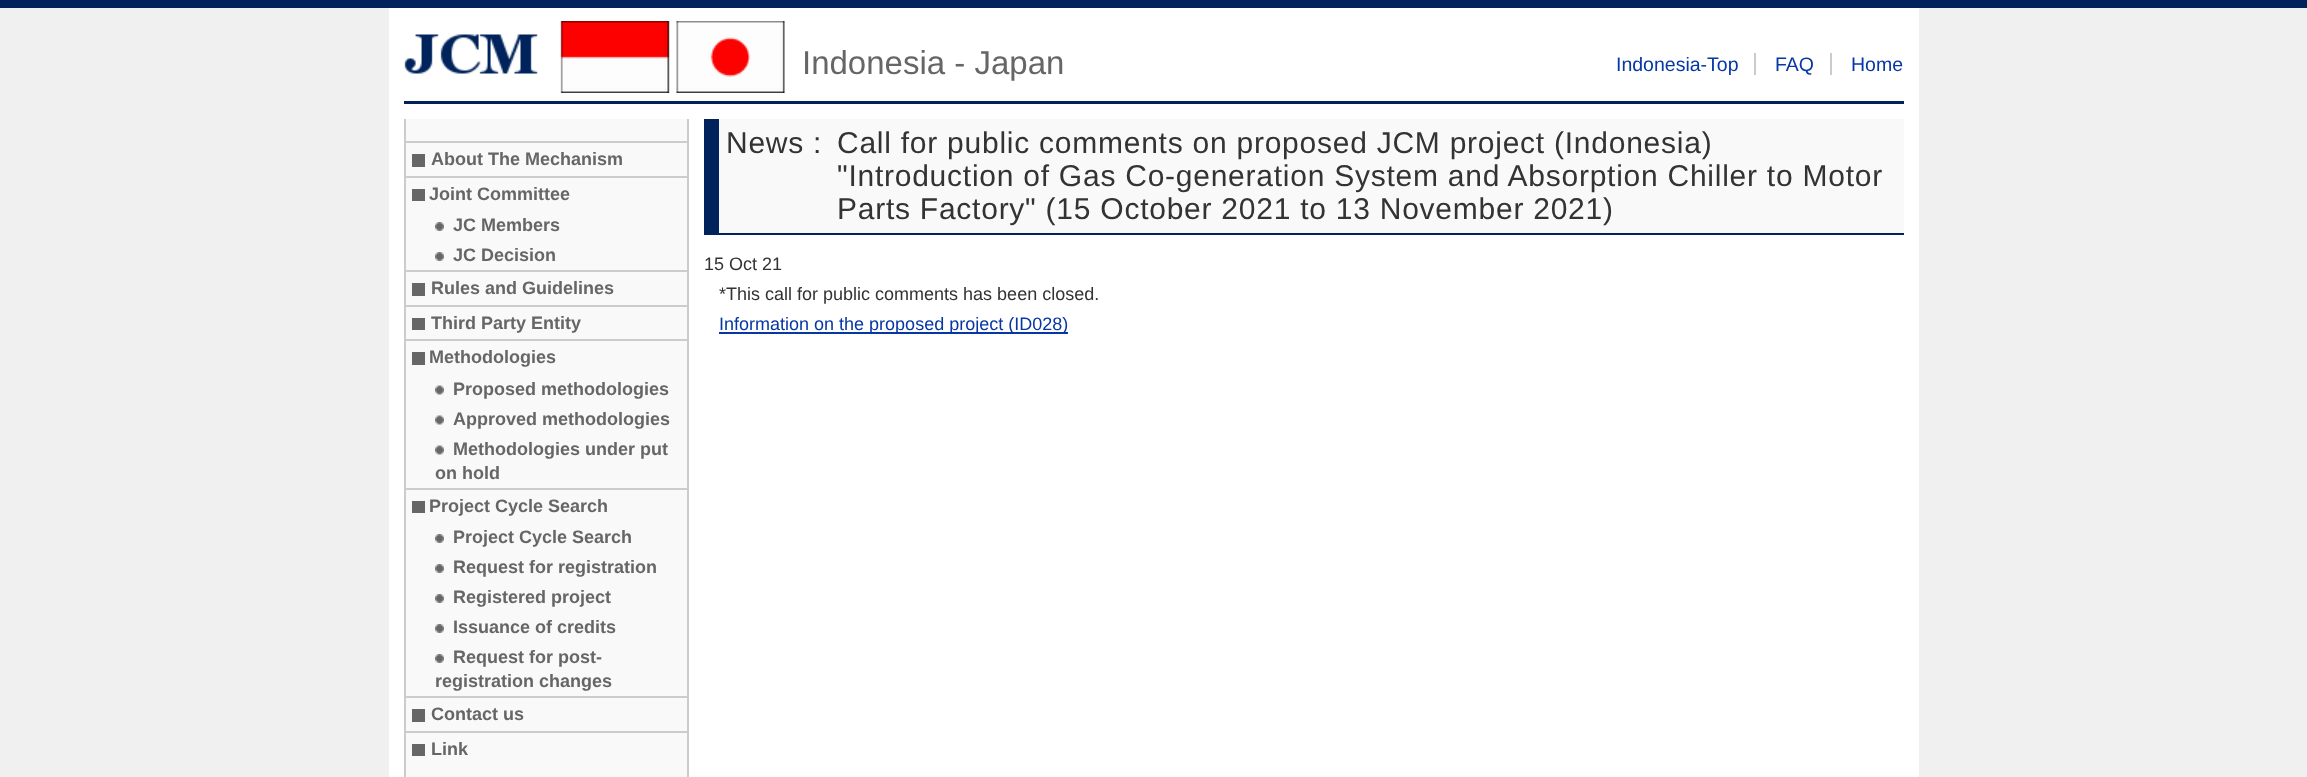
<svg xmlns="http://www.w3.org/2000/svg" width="2307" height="777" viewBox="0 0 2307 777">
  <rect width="100%" height="100%" fill="rgb(240,240,240)"/>
  <rect x="0" y="0" width="2307" height="8" fill="rgb(0,35,91)"/>
  <rect x="389" y="8" width="1530" height="769" fill="rgb(255,255,255)"/>
  <rect x="404" y="101" width="1500" height="3" fill="rgb(0,35,91)"/>
  <image x="404" y="21" width="381" height="72" href="pic1.png"/>
  <text x="802" y="74" font-family="Liberation Sans" font-size="33" fill="rgb(102,102,102)">Indonesia - Japan</text>
  <text x="1616" y="71" font-family="Liberation Sans" font-size="19.5" fill="rgb(6,55,165)">Indonesia-Top</text>
  <rect x="1754" y="53" width="2" height="22" fill="rgb(204,204,204)"/>
  <text x="1775" y="71" font-family="Liberation Sans" font-size="19.5" fill="rgb(6,55,165)">FAQ</text>
  <rect x="1830" y="53" width="2" height="22" fill="rgb(204,204,204)"/>
  <text x="1851" y="71" font-family="Liberation Sans" font-size="19.5" fill="rgb(6,55,165)">Home</text>
  <rect x="406" y="119" width="281" height="658" fill="rgb(249,249,249)"/>
  <rect x="687" y="119" width="2" height="658" fill="rgb(204,204,204)"/>
  <rect x="404" y="119" width="2" height="658" fill="rgb(204,204,204)"/>
  <rect x="405" y="141" width="282" height="2" fill="rgb(204,204,204)"/>
  <rect x="412" y="154" width="13" height="13" fill="rgb(102,102,102)"/>
  <text x="431" y="165" font-family="Liberation Sans" font-size="18" font-weight="bold" fill="rgb(102,102,102)">About The Mechanism</text>
  <rect x="405" y="176" width="282" height="2" fill="rgb(204,204,204)"/>
  <rect x="412" y="189" width="13" height="12" fill="rgb(102,102,102)"/>
  <text x="429" y="200" font-family="Liberation Sans" font-size="18" font-weight="bold" fill="rgb(102,102,102)">Joint Committee</text>
  <image x="435" y="222" width="9" height="9" href="pic2.png"/>
  <text x="453" y="231" font-family="Liberation Sans" font-size="18" font-weight="bold" fill="rgb(102,102,102)">JC Members</text>
  <image x="435" y="252" width="9" height="9" href="pic2.png"/>
  <text x="453" y="261" font-family="Liberation Sans" font-size="18" font-weight="bold" fill="rgb(102,102,102)">JC Decision</text>
  <rect x="405" y="270" width="282" height="2" fill="rgb(204,204,204)"/>
  <rect x="412" y="283" width="13" height="13" fill="rgb(102,102,102)"/>
  <text x="431" y="294" font-family="Liberation Sans" font-size="18" font-weight="bold" fill="rgb(102,102,102)">Rules and Guidelines</text>
  <rect x="405" y="305" width="282" height="2" fill="rgb(204,204,204)"/>
  <rect x="412" y="318" width="13" height="12" fill="rgb(102,102,102)"/>
  <text x="431" y="329" font-family="Liberation Sans" font-size="18" font-weight="bold" fill="rgb(102,102,102)">Third Party Entity</text>
  <rect x="405" y="339" width="282" height="2" fill="rgb(204,204,204)"/>
  <rect x="412" y="352" width="13" height="13" fill="rgb(102,102,102)"/>
  <text x="429" y="363" font-family="Liberation Sans" font-size="18" font-weight="bold" fill="rgb(102,102,102)">Methodologies</text>
  <image x="435" y="385" width="9" height="10" href="pic3.png"/>
  <text x="453" y="395" font-family="Liberation Sans" font-size="18" font-weight="bold" fill="rgb(102,102,102)">Proposed methodologies</text>
  <image x="435" y="415" width="9" height="10" href="pic3.png"/>
  <text x="453" y="425" font-family="Liberation Sans" font-size="18" font-weight="bold" fill="rgb(102,102,102)">Approved methodologies</text>
  <image x="435" y="445" width="9" height="10" href="pic3.png"/>
  <g font-family="Liberation Sans" font-size="18" font-weight="bold" fill="rgb(102,102,102)">
    <text x="453" y="455">Methodologies under put</text>
    <text x="435" y="479">on hold</text>
  </g>
  <rect x="405" y="488" width="282" height="2" fill="rgb(204,204,204)"/>
  <rect x="412" y="501" width="13" height="12" fill="rgb(102,102,102)"/>
  <text x="429" y="512" font-family="Liberation Sans" font-size="18" font-weight="bold" fill="rgb(102,102,102)">Project Cycle Search</text>
  <image x="435" y="534" width="9" height="9" href="pic2.png"/>
  <text x="453" y="543" font-family="Liberation Sans" font-size="18" font-weight="bold" fill="rgb(102,102,102)">Project Cycle Search</text>
  <image x="435" y="564" width="9" height="9" href="pic2.png"/>
  <text x="453" y="573" font-family="Liberation Sans" font-size="18" font-weight="bold" fill="rgb(102,102,102)">Request for registration</text>
  <image x="435" y="594" width="9" height="9" href="pic2.png"/>
  <text x="453" y="603" font-family="Liberation Sans" font-size="18" font-weight="bold" fill="rgb(102,102,102)">Registered project</text>
  <image x="435" y="624" width="9" height="9" href="pic2.png"/>
  <text x="453" y="633" font-family="Liberation Sans" font-size="18" font-weight="bold" fill="rgb(102,102,102)">Issuance of credits</text>
  <image x="435" y="654" width="9" height="9" href="pic2.png"/>
  <g font-family="Liberation Sans" font-size="18" font-weight="bold" fill="rgb(102,102,102)">
    <text x="453" y="663">Request for post-</text>
    <text x="435" y="687">registration changes</text>
  </g>
  <rect x="405" y="696" width="282" height="2" fill="rgb(204,204,204)"/>
  <rect x="412" y="709" width="13" height="13" fill="rgb(102,102,102)"/>
  <text x="431" y="720" font-family="Liberation Sans" font-size="18" font-weight="bold" fill="rgb(102,102,102)">Contact us</text>
  <rect x="405" y="731" width="282" height="2" fill="rgb(204,204,204)"/>
  <rect x="412" y="744" width="13" height="12" fill="rgb(102,102,102)"/>
  <text x="431" y="755" font-family="Liberation Sans" font-size="18" font-weight="bold" fill="rgb(102,102,102)">Link</text>
  <rect x="719" y="119" width="1185" height="114" fill="rgb(249,249,249)"/>
  <rect x="704" y="233" width="1200" height="2" fill="rgb(0,35,91)"/>
  <rect x="704" y="119" width="15" height="114" fill="rgb(0,35,91)"/>
  <g font-family="Liberation Sans" font-size="30" letter-spacing="0.75" fill="rgb(51,51,51)">
    <text x="726" y="153">News :</text>
    <text>
      <tspan x="837" y="153">Call for public comments on proposed JCM project (Indonesia)</tspan>
      <tspan x="837" y="186">"Introduction of Gas Co-generation System and Absorption Chiller to Motor</tspan>
      <tspan x="837" y="219">Parts Factory" (15 October 2021 to 13 November 2021)</tspan>
    </text>
  </g>
  <g font-family="Liberation Sans" font-size="18" fill="rgb(51,51,51)">
    <text x="704" y="270">15 Oct 21</text>
    <text x="719" y="300">*This call for public comments has been closed.</text>
  </g>
  <rect x="719" y="332" width="349" height="2" fill="rgb(6,55,165)"/>
  <text x="719" y="330" font-family="Liberation Sans" font-size="18" fill="rgb(6,55,165)">Information on the proposed project (ID028)</text>
</svg>
